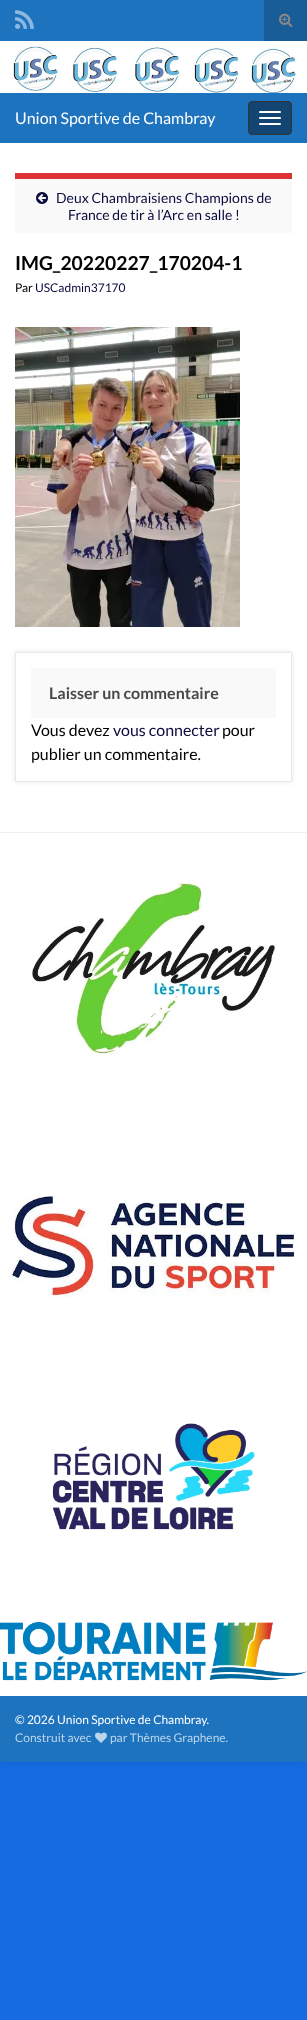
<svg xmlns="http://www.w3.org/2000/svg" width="307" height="2020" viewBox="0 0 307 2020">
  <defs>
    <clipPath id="clip1"><path d="M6 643H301V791H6ZM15 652H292V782H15Z" clip-rule="evenodd"/></clipPath>
  </defs>
  <rect width="100%" height="100%" fill="rgb(22,107,226)"/>
  <rect x="0" y="0" width="307" height="1762" fill="rgba(0,0,0,0.1)" filter="blur(5px)"/>
  <rect x="0" y="0" width="264" height="41" fill="rgb(30,115,190)"/>
  <image x="15" y="10" width="19" height="19" href="pic1.png"/>
  <rect x="264" y="0" width="43" height="41" fill="rgb(24,92,152)"/>
  <image x="279" y="13" width="14" height="14" href="pic2.png"/>
  <rect x="0" y="41" width="307" height="52" fill="rgb(255,255,255)"/>
  <image x="13" y="45" width="285" height="48" href="pic3.png"/>
  <rect x="0" y="93" width="307" height="50" fill="rgb(30,115,190)"/>
  <text x="15" y="124" font-family="Lato" font-size="16" fill="rgb(255,255,255)">Union Sportive de Chambray</text>
  <rect x="248.5" y="101.5" width="43" height="33" rx="3.5" fill="rgb(18,69,114)" stroke="rgb(51,51,51)"/>
  <rect x="259" y="111" width="22" height="2" rx="1" fill="rgb(255,255,255)"/>
  <rect x="259" y="117" width="22" height="2" rx="1" fill="rgb(255,255,255)"/>
  <rect x="259" y="123" width="22" height="2" rx="1" fill="rgb(255,255,255)"/>
  <rect x="0" y="143" width="307" height="689" fill="rgb(255,255,255)"/>
  <rect x="15" y="179" width="277" height="54" fill="rgb(249,249,249)"/>
  <rect x="15" y="173" width="277" height="6" fill="rgb(221,51,51)"/>
  <image x="36" y="192" width="12" height="12" href="pic4.png"/>
  <g font-family="Lato" font-size="14" fill="rgb(10,11,63)">
    <text x="56" y="203">Deux Chambraisiens Champions de</text>
    <text x="68" y="220">France de tir à l’Arc en salle !</text>
  </g>
  <text x="15" y="270" font-family="Lato" font-size="19.25" font-weight="bold" fill="rgb(0,0,0)">IMG_20220227_170204-1</text>
  <text x="15" y="292" font-family="Lato" font-size="12" fill="rgb(0,0,0)">Par</text>
  <text x="35" y="292" font-family="Lato" font-size="12" fill="rgb(10,11,63)">USCadmin37170</text>
  <image x="15" y="327" width="225" height="300" href="pic5.png"/>
  <g clip-path="url(#clip1)">
    <rect x="15" y="652" width="277" height="130" fill="rgba(0,0,0,0.1)" filter="blur(2.5px)"/>
  </g>
  <rect x="15.5" y="652.5" width="276" height="129" fill="none" stroke="rgb(233,232,227)"/>
  <rect x="31" y="668" width="245" height="50" fill="rgb(249,249,249)"/>
  <text x="49" y="699" font-family="Lato" font-size="16" font-weight="bold" fill="rgb(74,71,75)">Laisser un commentaire</text>
  <text x="31" y="736" font-family="Lato" font-size="16" fill="rgb(0,0,0)">Vous devez</text>
  <text x="113" y="736" font-family="Lato" font-size="16" fill="rgb(10,11,63)">vous connecter</text>
  <g font-family="Lato" font-size="16" fill="rgb(0,0,0)">
    <text x="222" y="736">pour</text>
    <text x="31" y="760">publier un commentaire.</text>
  </g>
  <rect x="0" y="833" width="307" height="863" fill="rgb(255,255,255)"/>
  <rect x="0" y="832" width="307" height="1" fill="rgb(238,238,238)"/>
  <image x="32" y="878" width="244" height="179" href="pic6.png"/>
  <image x="10" y="1195" width="285" height="102" href="pic7.png"/>
  <image x="52" y="1423" width="205" height="107" href="pic8.png"/>
  <image x="0" y="1622" width="307" height="59" href="pic9.png"/>
  <rect x="0" y="1696" width="307" height="66" fill="rgb(30,115,190)"/>
  <text x="15" y="1724" font-family="Lato" font-size="12" fill="rgb(255,255,255)">© 2026 Union Sportive de Chambray.</text>
  <text x="15" y="1742" font-family="Lato" font-size="12" fill="rgb(188,213,236)">Construit avec</text>
  <image x="95" y="1732" width="12" height="11" href="pic10.png"/>
  <text x="110" y="1742" font-family="Lato" font-size="12" fill="rgb(188,213,236)">par Thèmes Graphene.</text>
</svg>
